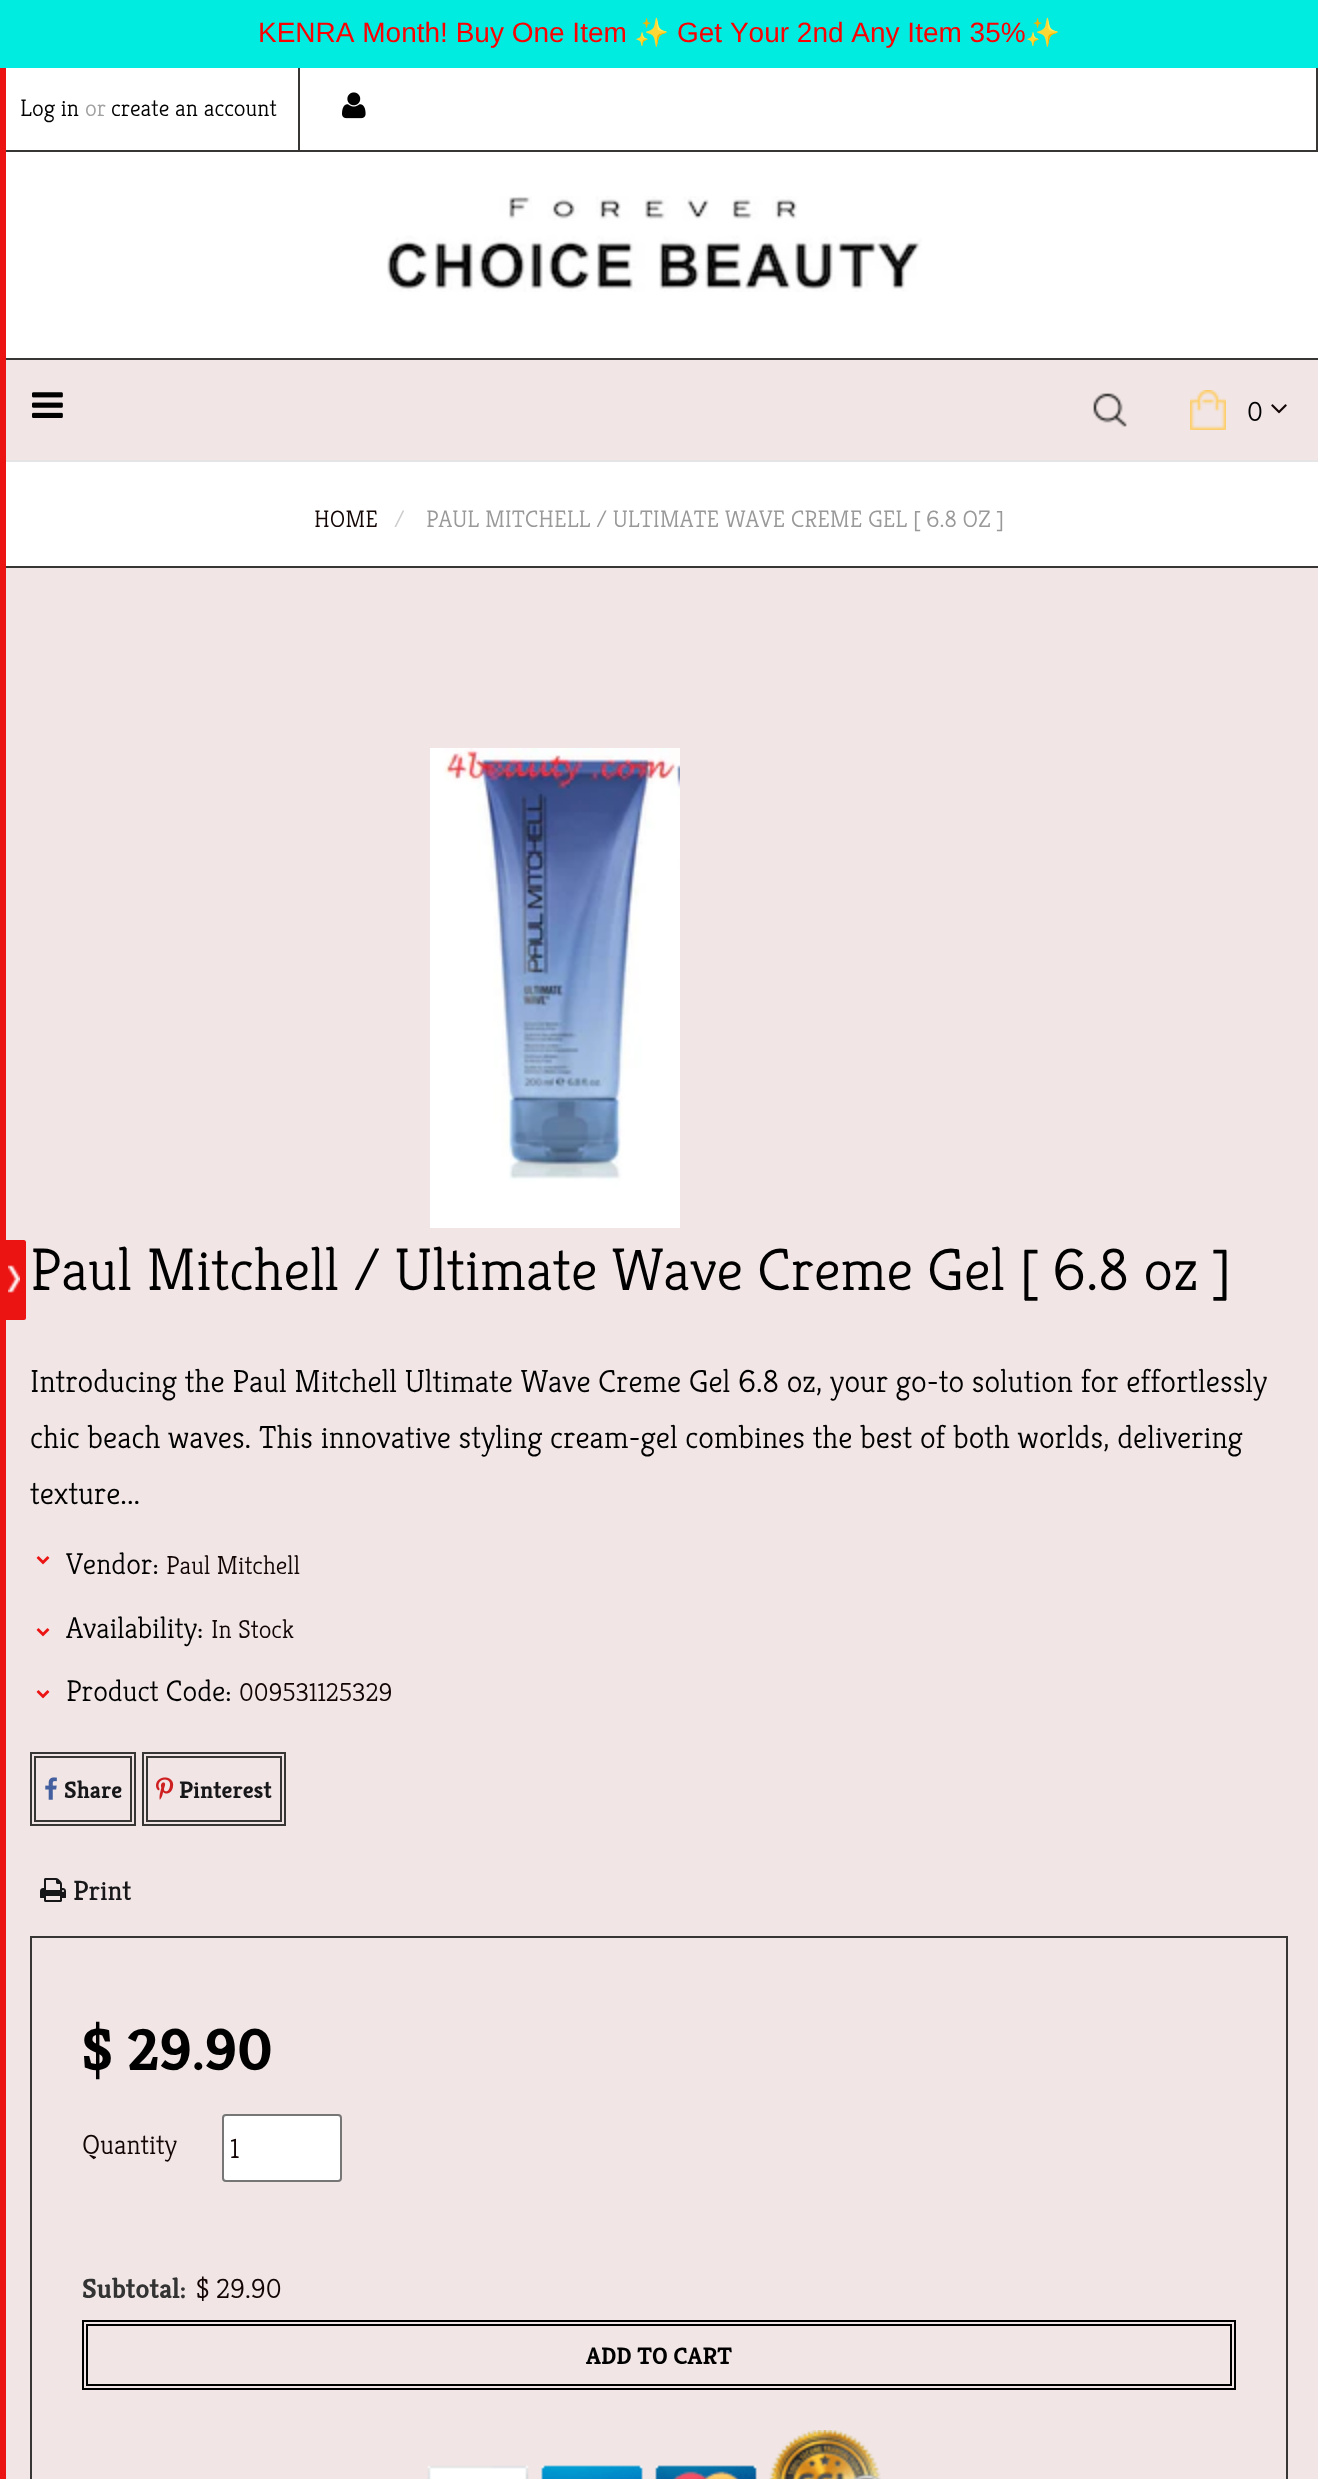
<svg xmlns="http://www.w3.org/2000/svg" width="1318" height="2479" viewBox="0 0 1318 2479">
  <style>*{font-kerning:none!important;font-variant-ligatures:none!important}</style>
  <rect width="100%" height="100%" fill="rgb(241,229,229)"/>
  <rect x="0" y="150" width="1318" height="2" fill="rgb(56,53,53)"/>
  <rect x="0" y="460" width="1318" height="2" fill="rgb(229,229,229)"/>
  <rect x="0" y="358" width="1318" height="2" fill="rgb(56,53,53)"/>
  <rect x="0" y="566" width="1318" height="2" fill="rgb(56,53,53)"/>
  <rect x="0" y="68" width="6" height="2411" fill="rgb(236,19,19)"/>
  <rect x="6" y="68" width="1310" height="82" fill="rgb(255,255,255)"/>
  <rect x="298" y="66" width="2" height="84" fill="rgb(56,53,53)"/>
  <rect x="1316" y="66" width="2" height="84" fill="rgb(56,53,53)"/>
  <rect x="0" y="0" width="1318" height="68" fill="rgb(0,236,225)"/>
  <text x="258" y="42" font-family="Liberation Sans" font-size="28" fill="rgb(250,2,2)">KENRA Month! Buy One Item</text>
  <text x="634" y="42" font-family="Noto Color Emoji" font-size="28" fill="rgb(250,2,2)">✨</text>
  <text x="677" y="42" font-family="Liberation Sans" font-size="28" fill="rgb(250,2,2)">Get Your 2nd Any Item 35%</text>
  <text x="1025" y="42" font-family="Noto Color Emoji" font-size="28" fill="rgb(250,2,2)">✨</text>
  <text x="20" y="116" font-family="Kreon" font-size="24" font-weight="300" fill="rgb(0,0,0)">Log in</text>
  <text x="85" y="116" font-family="Kreon" font-size="24" font-weight="300" fill="rgb(161,161,161)">or</text>
  <text x="111" y="116" font-family="Kreon" font-size="24" font-weight="300" fill="rgb(0,0,0)">create an account</text>
  <image x="342" y="92" width="24" height="27" href="pic1.png"/>
  <rect x="6" y="152" width="1312" height="206" fill="rgb(255,255,255)"/>
  <image x="387" y="196" width="535" height="96" href="pic2.png"/>
  <image x="32" y="392" width="31" height="26" href="pic3.png"/>
  <image x="1093" y="393" width="34" height="34" href="pic4.png"/>
  <image x="1190" y="390" width="36" height="40" href="pic5.png"/>
  <text x="1247" y="421" font-family="Kreon" font-size="28" font-weight="300" fill="rgb(0,0,0)">0</text>
  <image x="1271" y="404" width="16" height="10" href="pic6.png"/>
  <rect x="6" y="462" width="1312" height="104" fill="rgb(255,255,255)"/>
  <text x="314" y="527" font-family="Kreon" font-size="24" font-weight="300" fill="rgb(18,5,4)">HOME</text>
  <text x="394" y="527" font-family="Kreon" font-size="24" font-weight="300" fill="rgb(204,204,204)">/</text>
  <text x="426" y="527" font-family="Kreon" font-size="24" font-weight="300" fill="rgb(153,153,153)">PAUL MITCHELL / ULTIMATE WAVE CREME GEL [ 6.8 OZ ]</text>
  <image x="430" y="748" width="250" height="480" href="pic7.png"/>
  <text x="30" y="1290" font-family="Kreon" font-size="60" font-weight="300" fill="rgb(0,0,0)">Paul Mitchell / Ultimate Wave Creme Gel [ 6.8 oz ]</text>
  <g font-family="Kreon" font-size="32" font-weight="300" fill="rgb(0,0,0)">
    <text>
      <tspan x="30" y="1392">Introducing the Paul Mitchell Ultimate Wave Creme Gel 6.8 oz, your go-to solution for effortlessly</tspan>
      <tspan x="30" y="1448">chic beach waves. This innovative styling cream-gel combines the best of both worlds, delivering</tspan>
      <tspan x="30" y="1504">texture...</tspan>
    </text>
  </g>
  <image x="36" y="1556" width="14" height="9" href="pic8.png"/>
  <text x="66" y="1574" font-family="Kreon" font-size="30" font-weight="300" fill="rgb(0,0,0)">Vendor:</text>
  <text x="166" y="1574" font-family="Kreon" font-size="26" font-weight="300" fill="rgb(18,5,4)">Paul Mitchell</text>
  <image x="36" y="1628" width="14" height="9" href="pic8.png"/>
  <text x="66" y="1638" font-family="Kreon" font-size="30" font-weight="300" fill="rgb(0,0,0)">Availability:</text>
  <text x="211" y="1638" font-family="Kreon" font-size="26" font-weight="300" fill="rgb(18,5,4)">In Stock</text>
  <image x="36" y="1690" width="14" height="9" href="pic8.png"/>
  <text x="66" y="1701" font-family="Kreon" font-size="30" font-weight="300" fill="rgb(0,0,0)">Product Code:</text>
  <text x="239" y="1701" font-family="Kreon" font-size="26" font-weight="300" fill="rgb(18,5,4)">009531125329</text>
  <rect x="31" y="1753" width="104" height="72" fill="none" stroke="rgb(56,53,53)" stroke-width="2"/>
  <rect x="35" y="1757" width="96" height="64" fill="none" stroke="rgb(56,53,53)" stroke-width="2"/>
  <image x="45" y="1777" width="12" height="23" href="pic9.png"/>
  <text x="64" y="1798" font-family="Kreon" font-size="24" font-weight="bold" fill="rgb(23,23,25)">Share</text>
  <rect x="143" y="1753" width="142" height="72" fill="none" stroke="rgb(56,53,53)" stroke-width="2"/>
  <rect x="147" y="1757" width="134" height="64" fill="none" stroke="rgb(56,53,53)" stroke-width="2"/>
  <image x="156" y="1777" width="18" height="23" href="pic10.png"/>
  <text x="179" y="1798" font-family="Kreon" font-size="24" font-weight="bold" fill="rgb(23,23,25)">Pinterest</text>
  <image x="40" y="1878" width="26" height="24" href="pic11.png"/>
  <text x="73" y="1900" font-family="Kreon" font-size="28" fill="rgb(23,23,25)">Print</text>
  <rect x="31" y="1937" width="1256" height="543" fill="none" stroke="rgb(56,53,53)" stroke-width="2"/>
  <text x="82" y="2070" font-family="Kreon" font-size="60" font-weight="bold" fill="rgb(0,0,0)">$ 29.90</text>
  <text x="82" y="2154" font-family="Kreon" font-size="28" font-weight="300" fill="rgb(18,5,4)">Quantity</text>
  <rect x="223" y="2115" width="118" height="66" rx="3" fill="rgb(255,255,255)" stroke="rgb(118,118,118)" stroke-width="2"/>
  <text x="230" y="2158" font-family="Kreon" font-size="28" font-weight="300" fill="rgb(18,5,4)">1</text>
  <text x="82" y="2298" font-family="Kreon" font-size="28" font-weight="bold" fill="rgb(51,51,51)">Subtotal:</text>
  <text x="196" y="2298" font-family="Kreon" font-size="28" font-weight="300" fill="rgb(18,5,4)">$ 29.90</text>
  <rect x="83" y="2321" width="1152" height="68" fill="none" stroke="rgb(0,0,0)" stroke-width="2"/>
  <rect x="87" y="2325" width="1144" height="60" fill="none" stroke="rgb(0,0,0)" stroke-width="2"/>
  <text x="586" y="2364" font-family="Kreon" font-size="24" font-weight="bold" fill="rgb(0,0,0)">ADD TO CART</text>
  <image x="427" y="2430" width="454" height="49" href="pic12.png"/>
  <path d="M0 1240H24C25 1240 26 1241 26 1242V1318C26 1319 25 1320 24 1320H0Z" fill="rgb(236,19,19)"/>
  <image x="8" y="1265" width="12" height="28" href="pic13.png"/>
</svg>
